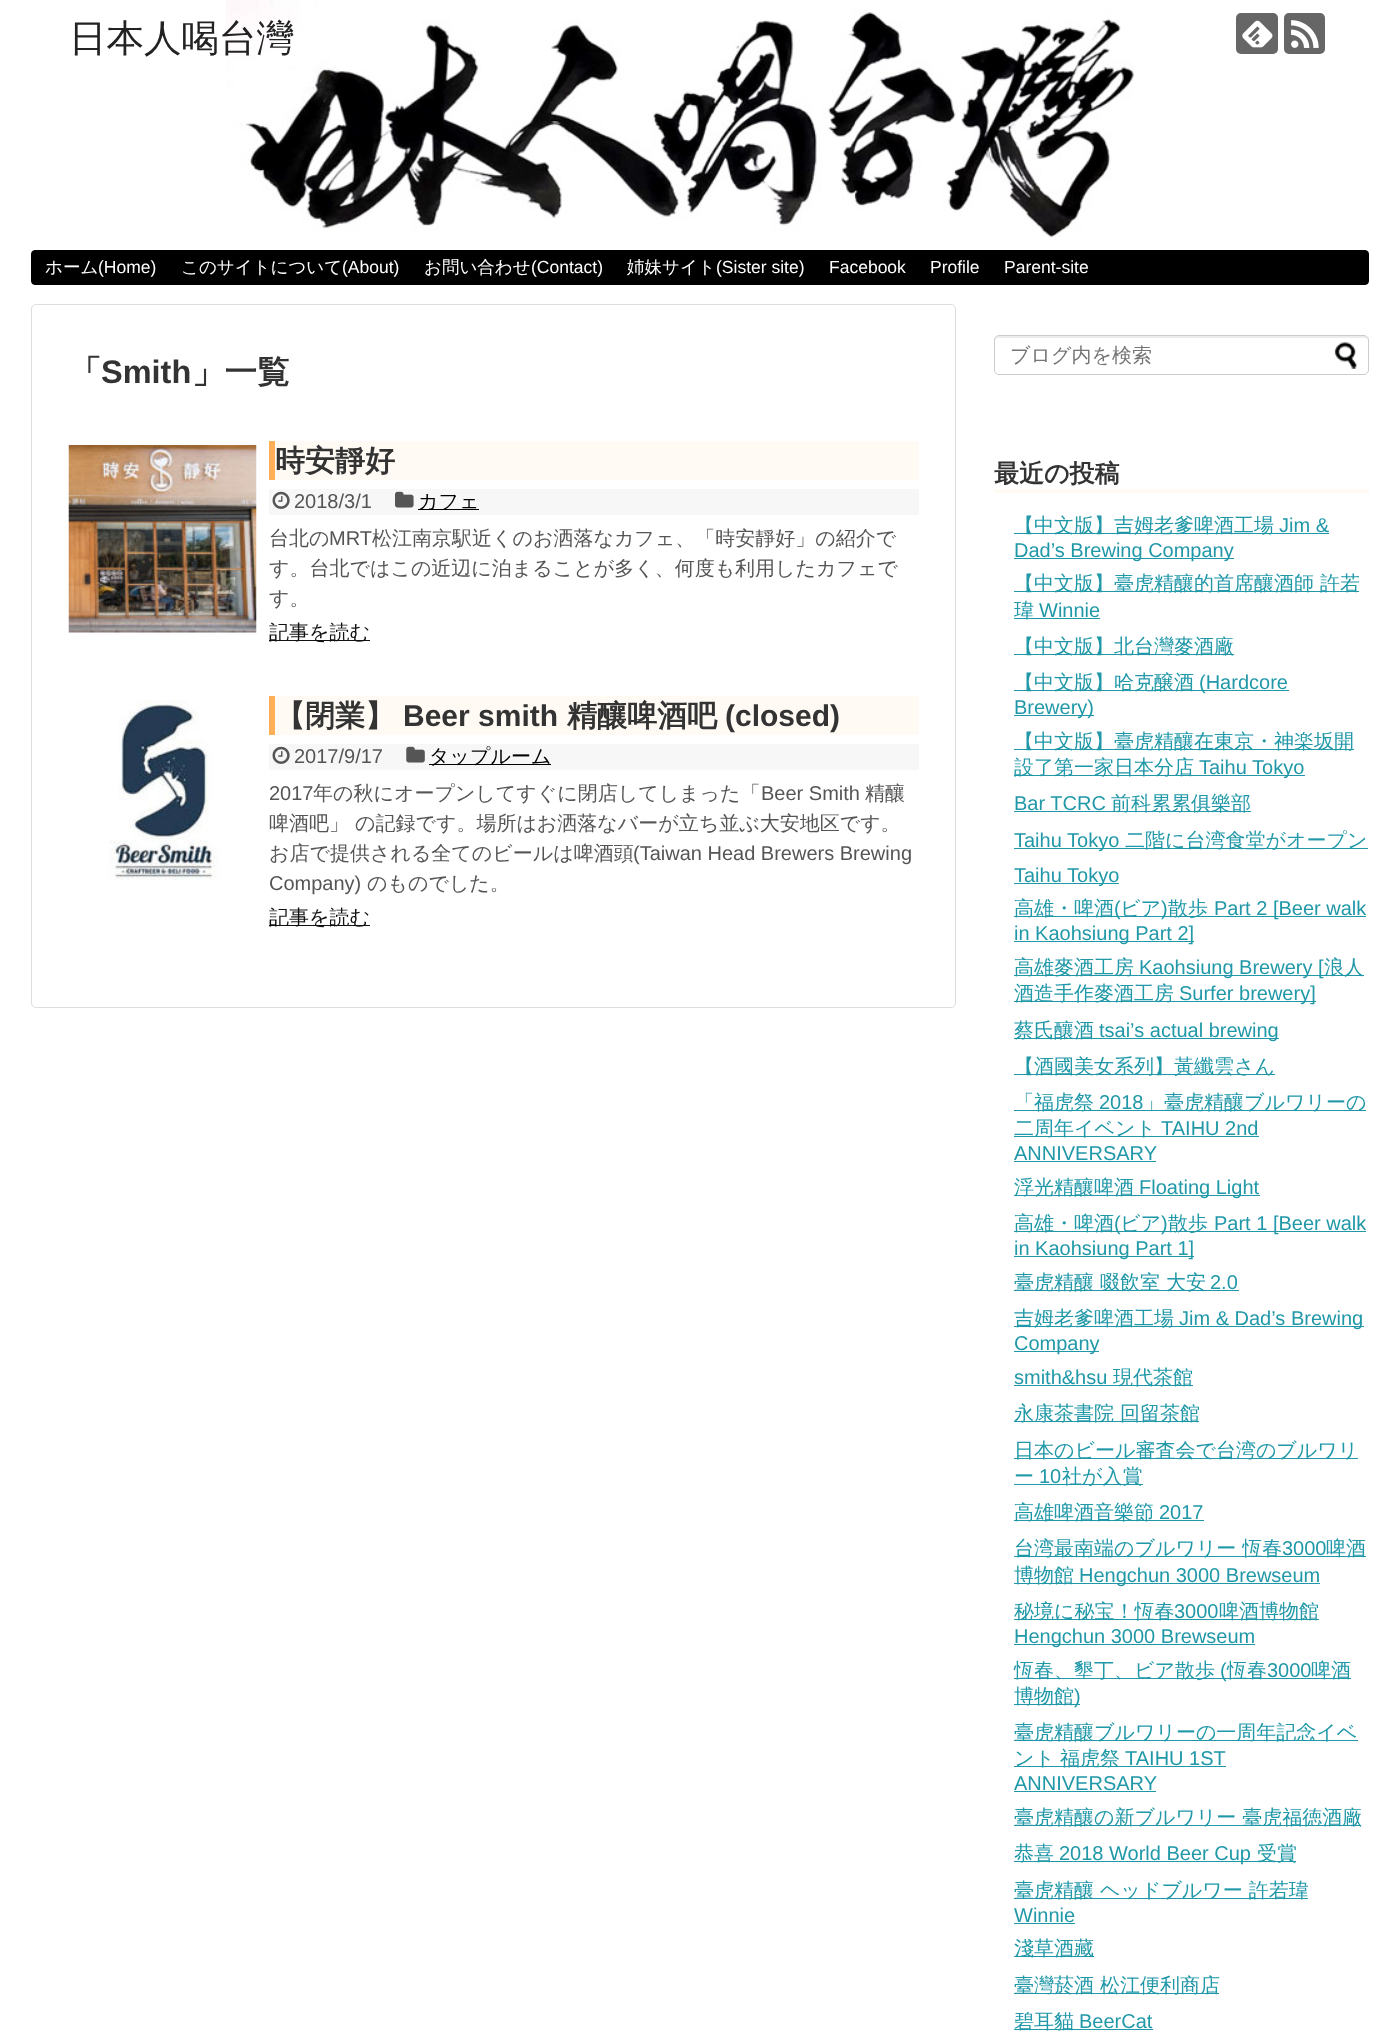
<svg xmlns="http://www.w3.org/2000/svg" width="1400" height="2041" viewBox="0 0 1400 2041">
  <rect width="100%" height="100%" fill="rgb(255,255,255)"/>
  <image x="226" y="0" width="908" height="238" href="pic1.png"/>
  <text x="69" y="51" font-family="WenQuanYi Zen Hei" font-size="37.5" font-weight="500" fill="rgb(34,34,34)">日本人喝台灣</text>
  <rect x="1236" y="13" width="42" height="41" rx="5" fill="rgb(102,102,102)"/>
  <image x="1242" y="20" width="31" height="28" href="pic2.png"/>
  <rect x="1284" y="13" width="41" height="41" rx="5" fill="rgb(102,102,102)"/>
  <image x="1291" y="20" width="28" height="28" href="pic3.png"/>
  <rect x="31.5" y="250.5" width="1337" height="34" rx="3.5" fill="rgb(0,0,0)" stroke="rgb(0,0,0)"/>
  <text x="45" y="273" font-family="WenQuanYi Zen Hei" font-size="17.5" font-weight="500" fill="rgb(255,255,255)">ホーム</text>
  <text x="98" y="273" font-family="Liberation Sans" font-size="17.5" fill="rgb(255,255,255)">(Home)</text>
  <text x="181" y="273" font-family="WenQuanYi Zen Hei" font-size="17.5" font-weight="500" fill="rgb(255,255,255)">このサイトについて</text>
  <text x="342" y="273" font-family="Liberation Sans" font-size="17.5" fill="rgb(255,255,255)">(About)</text>
  <text x="424" y="273" font-family="WenQuanYi Zen Hei" font-size="17.5" font-weight="500" fill="rgb(255,255,255)">お問い合わせ</text>
  <text x="531" y="273" font-family="Liberation Sans" font-size="17.5" fill="rgb(255,255,255)">(Contact)</text>
  <text x="627" y="273" font-family="WenQuanYi Zen Hei" font-size="17.5" font-weight="500" fill="rgb(255,255,255)">姉妹サイト</text>
  <g font-family="Liberation Sans" font-size="17.5" fill="rgb(255,255,255)">
    <text x="716" y="273">(Sister site)</text>
    <text x="829" y="273">Facebook</text>
    <text x="930" y="273">Profile</text>
    <text x="1004" y="273">Parent-site</text>
  </g>
  <rect x="31.5" y="304.5" width="924" height="703" rx="4.5" fill="none" stroke="rgb(221,221,221)"/>
  <text x="69" y="383" font-family="WenQuanYi Zen Hei" font-size="32.5" font-weight="bold" fill="rgb(51,51,51)">「</text>
  <text x="101" y="383" font-family="Liberation Sans" font-size="32.5" font-weight="bold" fill="rgb(51,51,51)">Smith</text>
  <text x="192" y="383" font-family="WenQuanYi Zen Hei" font-size="32.5" font-weight="bold" fill="rgb(51,51,51)">」一覧</text>
  <image x="68" y="445" width="189" height="188" href="pic4.png"/>
  <rect x="275" y="441" width="644" height="39" fill="rgb(255,250,244)"/>
  <rect x="269" y="441" width="6" height="39" fill="rgb(255,175,88)"/>
  <text x="275" y="471" font-family="WenQuanYi Zen Hei" font-size="30" font-weight="bold" fill="rgb(51,51,51)">時安靜好</text>
  <rect x="269" y="489" width="650" height="26" fill="rgb(247,247,247)"/>
  <image x="272" y="491" width="18" height="18" href="pic5.png"/>
  <text x="294" y="508" font-family="Liberation Sans" font-size="20" fill="rgb(85,85,85)">2018/3/1</text>
  <image x="395" y="491" width="19" height="17" href="pic6.png"/>
  <rect x="418" y="509" width="61" height="1" fill="rgb(0,0,0)"/>
  <text x="418" y="508" font-family="WenQuanYi Zen Hei" font-size="20" font-weight="500" fill="rgb(0,0,0)">カフェ</text>
  <text x="269" y="545" font-family="WenQuanYi Zen Hei" font-size="20" font-weight="500" fill="rgb(85,85,85)">台北の</text>
  <text x="329" y="545" font-family="Liberation Sans" font-size="20" fill="rgb(85,85,85)">MRT</text>
  <g font-family="WenQuanYi Zen Hei" font-size="20" font-weight="500" fill="rgb(85,85,85)">
    <text x="372" y="545">松江南京駅近くのお洒落なカフェ、「時安靜好」の紹介で</text>
    <text>
      <tspan x="269" y="575">す。台北ではこの近辺に泊まることが多く、何度も利用したカフェで</tspan>
      <tspan x="269" y="605">す。</tspan>
    </text>
  </g>
  <rect x="269" y="640" width="101" height="1" fill="rgb(17,17,17)"/>
  <text x="269" y="639" font-family="WenQuanYi Zen Hei" font-size="20" font-weight="500" fill="rgb(17,17,17)">記事を読む</text>
  <image x="109" y="700" width="110" height="181" href="pic7.png"/>
  <rect x="275" y="696" width="644" height="39" fill="rgb(255,250,244)"/>
  <rect x="269" y="696" width="6" height="39" fill="rgb(255,175,88)"/>
  <text x="275" y="726" font-family="WenQuanYi Zen Hei" font-size="30" font-weight="bold" fill="rgb(51,51,51)">【閉業】</text>
  <text x="403" y="726" font-family="Liberation Sans" font-size="30" font-weight="bold" fill="rgb(51,51,51)">Beer smith</text>
  <text x="567" y="726" font-family="WenQuanYi Zen Hei" font-size="30" font-weight="bold" fill="rgb(51,51,51)">精釀啤酒吧</text>
  <text x="725" y="726" font-family="Liberation Sans" font-size="30" font-weight="bold" fill="rgb(51,51,51)">(closed)</text>
  <rect x="269" y="744" width="650" height="26" fill="rgb(247,247,247)"/>
  <image x="272" y="746" width="18" height="18" href="pic5.png"/>
  <text x="294" y="763" font-family="Liberation Sans" font-size="20" fill="rgb(85,85,85)">2017/9/17</text>
  <image x="406" y="746" width="19" height="17" href="pic8.png"/>
  <rect x="429" y="764" width="122" height="1" fill="rgb(0,0,0)"/>
  <text x="429" y="763" font-family="WenQuanYi Zen Hei" font-size="20" font-weight="500" fill="rgb(0,0,0)">タップルーム</text>
  <text x="269" y="800" font-family="Liberation Sans" font-size="20" fill="rgb(85,85,85)">2017</text>
  <text x="313" y="800" font-family="WenQuanYi Zen Hei" font-size="20" font-weight="500" fill="rgb(85,85,85)">年の秋にオープンしてすぐに閉店してしまった「</text>
  <text x="761" y="800" font-family="Liberation Sans" font-size="20" fill="rgb(85,85,85)">Beer Smith</text>
  <g font-family="WenQuanYi Zen Hei" font-size="20" font-weight="500" fill="rgb(85,85,85)">
    <text x="865" y="800">精釀</text>
    <text>
      <tspan x="269" y="830">啤酒吧」 の記録です。場所はお洒落なバーが立ち並ぶ大安地区です。</tspan>
      <tspan x="269" y="860">お店で提供される全てのビールは啤酒頭</tspan>
    </text>
  </g>
  <g font-family="Liberation Sans" font-size="20" fill="rgb(85,85,85)">
    <text x="633" y="860">(Taiwan Head Brewers Brewing</text>
    <text x="269" y="890">Company)</text>
  </g>
  <text x="367" y="890" font-family="WenQuanYi Zen Hei" font-size="20" font-weight="500" fill="rgb(85,85,85)">のものでした。</text>
  <rect x="269" y="925" width="101" height="1" fill="rgb(17,17,17)"/>
  <text x="269" y="924" font-family="WenQuanYi Zen Hei" font-size="20" font-weight="500" fill="rgb(17,17,17)">記事を読む</text>
  <path d="M999 338H1364C1366 338 1368 339 1368 341C1368 338 1367 336 1364 336H999C996 336 995 338 995 341C995 339 997 338 999 338Z" fill="rgb(236,236,236)"/>
  <rect x="994.5" y="335.5" width="374" height="39" rx="4.5" fill="none" stroke="rgb(204,204,204)"/>
  <text x="1010" y="362" font-family="WenQuanYi Zen Hei" font-size="20" font-weight="500" fill="rgb(117,117,117)">ブログ内を検索</text>
  <image x="1334" y="342" width="23" height="27" href="pic9.png"/>
  <rect x="994" y="489" width="375" height="4" fill="rgb(255,250,244)"/>
  <text x="994" y="482" font-family="WenQuanYi Zen Hei" font-size="25" font-weight="bold" fill="rgb(51,51,51)">最近の投稿</text>
  <rect x="1014" y="533" width="315" height="1" fill="rgb(32,152,168)"/>
  <text x="1014" y="532" font-family="WenQuanYi Zen Hei" font-size="20" font-weight="500" fill="rgb(32,152,168)">【中文版】吉姆老爹啤酒工場</text>
  <text x="1279" y="532" font-family="Liberation Sans" font-size="20" fill="rgb(32,152,168)">Jim &amp;</text>
  <rect x="1014" y="558" width="220" height="1" fill="rgb(32,152,168)"/>
  <text x="1014" y="557" font-family="Liberation Sans" font-size="20" fill="rgb(32,152,168)">Dad’s Brewing Company</text>
  <rect x="1014" y="591" width="345" height="1" fill="rgb(32,152,168)"/>
  <text x="1014" y="590" font-family="WenQuanYi Zen Hei" font-size="20" font-weight="500" fill="rgb(32,152,168)">【中文版】臺虎精釀的首席釀酒師 許若</text>
  <rect x="1014" y="618" width="86" height="1" fill="rgb(32,152,168)"/>
  <text x="1014" y="617" font-family="WenQuanYi Zen Hei" font-size="20" font-weight="500" fill="rgb(32,152,168)">瑋</text>
  <text x="1039" y="617" font-family="Liberation Sans" font-size="20" fill="rgb(32,152,168)">Winnie</text>
  <rect x="1014" y="654" width="220" height="1" fill="rgb(32,152,168)"/>
  <text x="1014" y="653" font-family="WenQuanYi Zen Hei" font-size="20" font-weight="500" fill="rgb(32,152,168)">【中文版】北台灣麥酒廠</text>
  <rect x="1014" y="690" width="275" height="1" fill="rgb(32,152,168)"/>
  <text x="1014" y="689" font-family="WenQuanYi Zen Hei" font-size="20" font-weight="500" fill="rgb(32,152,168)">【中文版】哈克醸酒</text>
  <text x="1199" y="689" font-family="Liberation Sans" font-size="20" fill="rgb(32,152,168)">(Hardcore</text>
  <rect x="1014" y="715" width="80" height="1" fill="rgb(32,152,168)"/>
  <text x="1014" y="714" font-family="Liberation Sans" font-size="20" fill="rgb(32,152,168)">Brewery)</text>
  <rect x="1014" y="749" width="340" height="1" fill="rgb(32,152,168)"/>
  <text x="1014" y="748" font-family="WenQuanYi Zen Hei" font-size="20" font-weight="500" fill="rgb(32,152,168)">【中文版】臺虎精釀在東京・神楽坂開</text>
  <rect x="1014" y="775" width="291" height="1" fill="rgb(32,152,168)"/>
  <text x="1014" y="774" font-family="WenQuanYi Zen Hei" font-size="20" font-weight="500" fill="rgb(32,152,168)">設了第一家日本分店</text>
  <g font-family="Liberation Sans" font-size="20" fill="rgb(32,152,168)">
    <text x="1199" y="774">Taihu Tokyo</text>
    <text x="1014" y="810">Bar TCRC</text>
  </g>
  <rect x="1014" y="811" width="237" height="1" fill="rgb(32,152,168)"/>
  <text x="1111" y="810" font-family="WenQuanYi Zen Hei" font-size="20" font-weight="500" fill="rgb(32,152,168)">前科累累俱樂部</text>
  <rect x="1014" y="848" width="354" height="1" fill="rgb(32,152,168)"/>
  <text x="1014" y="847" font-family="Liberation Sans" font-size="20" fill="rgb(32,152,168)">Taihu Tokyo</text>
  <text x="1125" y="847" font-family="WenQuanYi Zen Hei" font-size="20" font-weight="500" fill="rgb(32,152,168)">二階に台湾食堂がオープン</text>
  <rect x="1014" y="883" width="105" height="1" fill="rgb(32,152,168)"/>
  <text x="1014" y="882" font-family="Liberation Sans" font-size="20" fill="rgb(32,152,168)">Taihu Tokyo</text>
  <rect x="1014" y="916" width="352" height="1" fill="rgb(32,152,168)"/>
  <text x="1014" y="915" font-family="WenQuanYi Zen Hei" font-size="20" font-weight="500" fill="rgb(32,152,168)">高雄・啤酒</text>
  <text x="1114" y="915" font-family="Liberation Sans" font-size="20" fill="rgb(32,152,168)">(</text>
  <text x="1120" y="915" font-family="WenQuanYi Zen Hei" font-size="20" font-weight="500" fill="rgb(32,152,168)">ビア</text>
  <text x="1161" y="915" font-family="Liberation Sans" font-size="20" fill="rgb(32,152,168)">)</text>
  <text x="1168" y="915" font-family="WenQuanYi Zen Hei" font-size="20" font-weight="500" fill="rgb(32,152,168)">散歩</text>
  <text x="1214" y="915" font-family="Liberation Sans" font-size="20" fill="rgb(32,152,168)">Part 2 [Beer walk</text>
  <rect x="1014" y="941" width="180" height="1" fill="rgb(32,152,168)"/>
  <text x="1014" y="940" font-family="Liberation Sans" font-size="20" fill="rgb(32,152,168)">in Kaohsiung Part 2]</text>
  <rect x="1014" y="975" width="350" height="1" fill="rgb(32,152,168)"/>
  <text x="1014" y="974" font-family="WenQuanYi Zen Hei" font-size="20" font-weight="500" fill="rgb(32,152,168)">高雄麥酒工房</text>
  <text x="1139" y="974" font-family="Liberation Sans" font-size="20" fill="rgb(32,152,168)">Kaohsiung Brewery [</text>
  <text x="1324" y="974" font-family="WenQuanYi Zen Hei" font-size="20" font-weight="500" fill="rgb(32,152,168)">浪人</text>
  <rect x="1014" y="1001" width="302" height="1" fill="rgb(32,152,168)"/>
  <text x="1014" y="1000" font-family="WenQuanYi Zen Hei" font-size="20" font-weight="500" fill="rgb(32,152,168)">酒造手作麥酒工房</text>
  <text x="1179" y="1000" font-family="Liberation Sans" font-size="20" fill="rgb(32,152,168)">Surfer brewery]</text>
  <rect x="1014" y="1038" width="265" height="1" fill="rgb(32,152,168)"/>
  <text x="1014" y="1037" font-family="WenQuanYi Zen Hei" font-size="20" font-weight="500" fill="rgb(32,152,168)">蔡氏釀酒</text>
  <text x="1099" y="1037" font-family="Liberation Sans" font-size="20" fill="rgb(32,152,168)">tsai’s actual brewing</text>
  <rect x="1014" y="1074" width="261" height="1" fill="rgb(32,152,168)"/>
  <text x="1014" y="1073" font-family="WenQuanYi Zen Hei" font-size="20" font-weight="500" fill="rgb(32,152,168)">【酒國美女系列】黃纖雲さん</text>
  <rect x="1014" y="1110" width="352" height="1" fill="rgb(32,152,168)"/>
  <text x="1014" y="1109" font-family="WenQuanYi Zen Hei" font-size="20" font-weight="500" fill="rgb(32,152,168)">「福虎祭</text>
  <text x="1099" y="1109" font-family="Liberation Sans" font-size="20" fill="rgb(32,152,168)">2018</text>
  <text x="1144" y="1109" font-family="WenQuanYi Zen Hei" font-size="20" font-weight="500" fill="rgb(32,152,168)">」臺虎精釀ブルワリーの</text>
  <rect x="1014" y="1136" width="245" height="1" fill="rgb(32,152,168)"/>
  <text x="1014" y="1135" font-family="WenQuanYi Zen Hei" font-size="20" font-weight="500" fill="rgb(32,152,168)">二周年イベント</text>
  <g font-family="Liberation Sans" font-size="20" fill="rgb(32,152,168)">
    <text x="1161" y="1135">TAIHU 2nd</text>
    <text x="1014" y="1160">ANNIVERSARY</text>
  </g>
  <rect x="1014" y="1161" width="142" height="1" fill="rgb(32,152,168)"/>
  <rect x="1014" y="1195" width="246" height="1" fill="rgb(32,152,168)"/>
  <text x="1014" y="1194" font-family="WenQuanYi Zen Hei" font-size="20" font-weight="500" fill="rgb(32,152,168)">浮光精釀啤酒</text>
  <text x="1139" y="1194" font-family="Liberation Sans" font-size="20" fill="rgb(32,152,168)">Floating Light</text>
  <rect x="1014" y="1231" width="352" height="1" fill="rgb(32,152,168)"/>
  <text x="1014" y="1230" font-family="WenQuanYi Zen Hei" font-size="20" font-weight="500" fill="rgb(32,152,168)">高雄・啤酒</text>
  <text x="1114" y="1230" font-family="Liberation Sans" font-size="20" fill="rgb(32,152,168)">(</text>
  <text x="1120" y="1230" font-family="WenQuanYi Zen Hei" font-size="20" font-weight="500" fill="rgb(32,152,168)">ビア</text>
  <text x="1161" y="1230" font-family="Liberation Sans" font-size="20" fill="rgb(32,152,168)">)</text>
  <text x="1168" y="1230" font-family="WenQuanYi Zen Hei" font-size="20" font-weight="500" fill="rgb(32,152,168)">散歩</text>
  <text x="1214" y="1230" font-family="Liberation Sans" font-size="20" fill="rgb(32,152,168)">Part 1 [Beer walk</text>
  <rect x="1014" y="1256" width="180" height="1" fill="rgb(32,152,168)"/>
  <text x="1014" y="1255" font-family="Liberation Sans" font-size="20" fill="rgb(32,152,168)">in Kaohsiung Part 1]</text>
  <rect x="1014" y="1290" width="225" height="1" fill="rgb(32,152,168)"/>
  <text x="1014" y="1289" font-family="WenQuanYi Zen Hei" font-size="20" font-weight="500" fill="rgb(32,152,168)">臺虎精釀 啜飲室 大安</text>
  <text x="1210" y="1289" font-family="Liberation Sans" font-size="20" fill="rgb(32,152,168)">2.0</text>
  <rect x="1014" y="1326" width="350" height="1" fill="rgb(32,152,168)"/>
  <text x="1014" y="1325" font-family="WenQuanYi Zen Hei" font-size="20" font-weight="500" fill="rgb(32,152,168)">吉姆老爹啤酒工場</text>
  <text x="1179" y="1325" font-family="Liberation Sans" font-size="20" fill="rgb(32,152,168)">Jim &amp; Dad’s Brewing</text>
  <rect x="1014" y="1351" width="85" height="1" fill="rgb(32,152,168)"/>
  <g font-family="Liberation Sans" font-size="20" fill="rgb(32,152,168)">
    <text>
      <tspan x="1014" y="1350">Company</tspan>
      <tspan x="1014" y="1384">smith&amp;hsu</tspan>
    </text>
  </g>
  <rect x="1014" y="1385" width="179" height="1" fill="rgb(32,152,168)"/>
  <text x="1113" y="1384" font-family="WenQuanYi Zen Hei" font-size="20" font-weight="500" fill="rgb(32,152,168)">現代茶館</text>
  <rect x="1014" y="1421" width="185" height="1" fill="rgb(32,152,168)"/>
  <text x="1014" y="1420" font-family="WenQuanYi Zen Hei" font-size="20" font-weight="500" fill="rgb(32,152,168)">永康茶書院 回留茶館</text>
  <rect x="1014" y="1458" width="344" height="1" fill="rgb(32,152,168)"/>
  <g font-family="WenQuanYi Zen Hei" font-size="20" font-weight="500" fill="rgb(32,152,168)">
    <text>
      <tspan x="1014" y="1457">日本のビール審査会で台湾のブルワリ</tspan>
      <tspan x="1014" y="1483">ー</tspan>
    </text>
  </g>
  <text x="1039" y="1483" font-family="Liberation Sans" font-size="20" fill="rgb(32,152,168)">10</text>
  <rect x="1014" y="1484" width="129" height="1" fill="rgb(32,152,168)"/>
  <text x="1062" y="1483" font-family="WenQuanYi Zen Hei" font-size="20" font-weight="500" fill="rgb(32,152,168)">社が入賞</text>
  <rect x="1014" y="1520" width="190" height="1" fill="rgb(32,152,168)"/>
  <text x="1014" y="1519" font-family="WenQuanYi Zen Hei" font-size="20" font-weight="500" fill="rgb(32,152,168)">高雄啤酒音樂節</text>
  <text x="1159" y="1519" font-family="Liberation Sans" font-size="20" fill="rgb(32,152,168)">2017</text>
  <rect x="1014" y="1556" width="352" height="1" fill="rgb(32,152,168)"/>
  <text x="1014" y="1555" font-family="WenQuanYi Zen Hei" font-size="20" font-weight="500" fill="rgb(32,152,168)">台湾最南端のブルワリー 恆春</text>
  <text x="1282" y="1555" font-family="Liberation Sans" font-size="20" fill="rgb(32,152,168)">3000</text>
  <text x="1326" y="1555" font-family="WenQuanYi Zen Hei" font-size="20" font-weight="500" fill="rgb(32,152,168)">啤酒</text>
  <rect x="1014" y="1583" width="306" height="1" fill="rgb(32,152,168)"/>
  <text x="1014" y="1582" font-family="WenQuanYi Zen Hei" font-size="20" font-weight="500" fill="rgb(32,152,168)">博物館</text>
  <text x="1079" y="1582" font-family="Liberation Sans" font-size="20" fill="rgb(32,152,168)">Hengchun 3000 Brewseum</text>
  <rect x="1014" y="1619" width="305" height="1" fill="rgb(32,152,168)"/>
  <text x="1014" y="1618" font-family="WenQuanYi Zen Hei" font-size="20" font-weight="500" fill="rgb(32,152,168)">秘境に秘宝！恆春</text>
  <text x="1174" y="1618" font-family="Liberation Sans" font-size="20" fill="rgb(32,152,168)">3000</text>
  <text x="1219" y="1618" font-family="WenQuanYi Zen Hei" font-size="20" font-weight="500" fill="rgb(32,152,168)">啤酒博物館</text>
  <rect x="1014" y="1644" width="241" height="1" fill="rgb(32,152,168)"/>
  <text x="1014" y="1643" font-family="Liberation Sans" font-size="20" fill="rgb(32,152,168)">Hengchun 3000 Brewseum</text>
  <rect x="1014" y="1678" width="337" height="1" fill="rgb(32,152,168)"/>
  <text x="1014" y="1677" font-family="WenQuanYi Zen Hei" font-size="20" font-weight="500" fill="rgb(32,152,168)">恆春、墾丁、ビア散歩</text>
  <text x="1220" y="1677" font-family="Liberation Sans" font-size="20" fill="rgb(32,152,168)">(</text>
  <text x="1227" y="1677" font-family="WenQuanYi Zen Hei" font-size="20" font-weight="500" fill="rgb(32,152,168)">恆春</text>
  <text x="1267" y="1677" font-family="Liberation Sans" font-size="20" fill="rgb(32,152,168)">3000</text>
  <text x="1311" y="1677" font-family="WenQuanYi Zen Hei" font-size="20" font-weight="500" fill="rgb(32,152,168)">啤酒</text>
  <rect x="1014" y="1704" width="66" height="1" fill="rgb(32,152,168)"/>
  <text x="1014" y="1703" font-family="WenQuanYi Zen Hei" font-size="20" font-weight="500" fill="rgb(32,152,168)">博物館</text>
  <text x="1074" y="1703" font-family="Liberation Sans" font-size="20" fill="rgb(32,152,168)">)</text>
  <rect x="1014" y="1740" width="344" height="1" fill="rgb(32,152,168)"/>
  <text x="1014" y="1739" font-family="WenQuanYi Zen Hei" font-size="20" font-weight="500" fill="rgb(32,152,168)">臺虎精釀ブルワリーの一周年記念イベ</text>
  <rect x="1014" y="1766" width="212" height="1" fill="rgb(32,152,168)"/>
  <g font-family="WenQuanYi Zen Hei" font-size="20" font-weight="500" fill="rgb(32,152,168)">
    <text x="1014" y="1765">ント</text>
    <text x="1060" y="1765">福虎祭</text>
  </g>
  <g font-family="Liberation Sans" font-size="20" fill="rgb(32,152,168)">
    <text x="1125" y="1765">TAIHU 1ST</text>
    <text x="1014" y="1790">ANNIVERSARY</text>
  </g>
  <rect x="1014" y="1791" width="142" height="1" fill="rgb(32,152,168)"/>
  <rect x="1014" y="1825" width="347" height="1" fill="rgb(32,152,168)"/>
  <text x="1014" y="1824" font-family="WenQuanYi Zen Hei" font-size="20" font-weight="500" fill="rgb(32,152,168)">臺虎精釀の新ブルワリー 臺虎福徳酒廠</text>
  <rect x="1014" y="1861" width="282" height="1" fill="rgb(32,152,168)"/>
  <text x="1014" y="1860" font-family="WenQuanYi Zen Hei" font-size="20" font-weight="500" fill="rgb(32,152,168)">恭喜</text>
  <text x="1059" y="1860" font-family="Liberation Sans" font-size="20" fill="rgb(32,152,168)">2018 World Beer Cup</text>
  <text x="1257" y="1860" font-family="WenQuanYi Zen Hei" font-size="20" font-weight="500" fill="rgb(32,152,168)">受賞</text>
  <rect x="1014" y="1898" width="294" height="1" fill="rgb(32,152,168)"/>
  <text x="1014" y="1897" font-family="WenQuanYi Zen Hei" font-size="20" font-weight="500" fill="rgb(32,152,168)">臺虎精釀 ヘッドブルワー 許若瑋</text>
  <text x="1014" y="1922" font-family="Liberation Sans" font-size="20" fill="rgb(32,152,168)">Winnie</text>
  <rect x="1014" y="1923" width="61" height="1" fill="rgb(32,152,168)"/>
  <rect x="1014" y="1956" width="80" height="1" fill="rgb(32,152,168)"/>
  <text x="1014" y="1955" font-family="WenQuanYi Zen Hei" font-size="20" font-weight="500" fill="rgb(32,152,168)">淺草酒藏</text>
  <rect x="1014" y="1993" width="205" height="1" fill="rgb(32,152,168)"/>
  <text x="1014" y="1992" font-family="WenQuanYi Zen Hei" font-size="20" font-weight="500" fill="rgb(32,152,168)">臺灣菸酒 松江便利商店</text>
  <rect x="1014" y="2029" width="139" height="1" fill="rgb(32,152,168)"/>
  <text x="1014" y="2028" font-family="WenQuanYi Zen Hei" font-size="20" font-weight="500" fill="rgb(32,152,168)">碧耳貓</text>
  <text x="1079" y="2028" font-family="Liberation Sans" font-size="20" fill="rgb(32,152,168)">BeerCat</text>
</svg>
